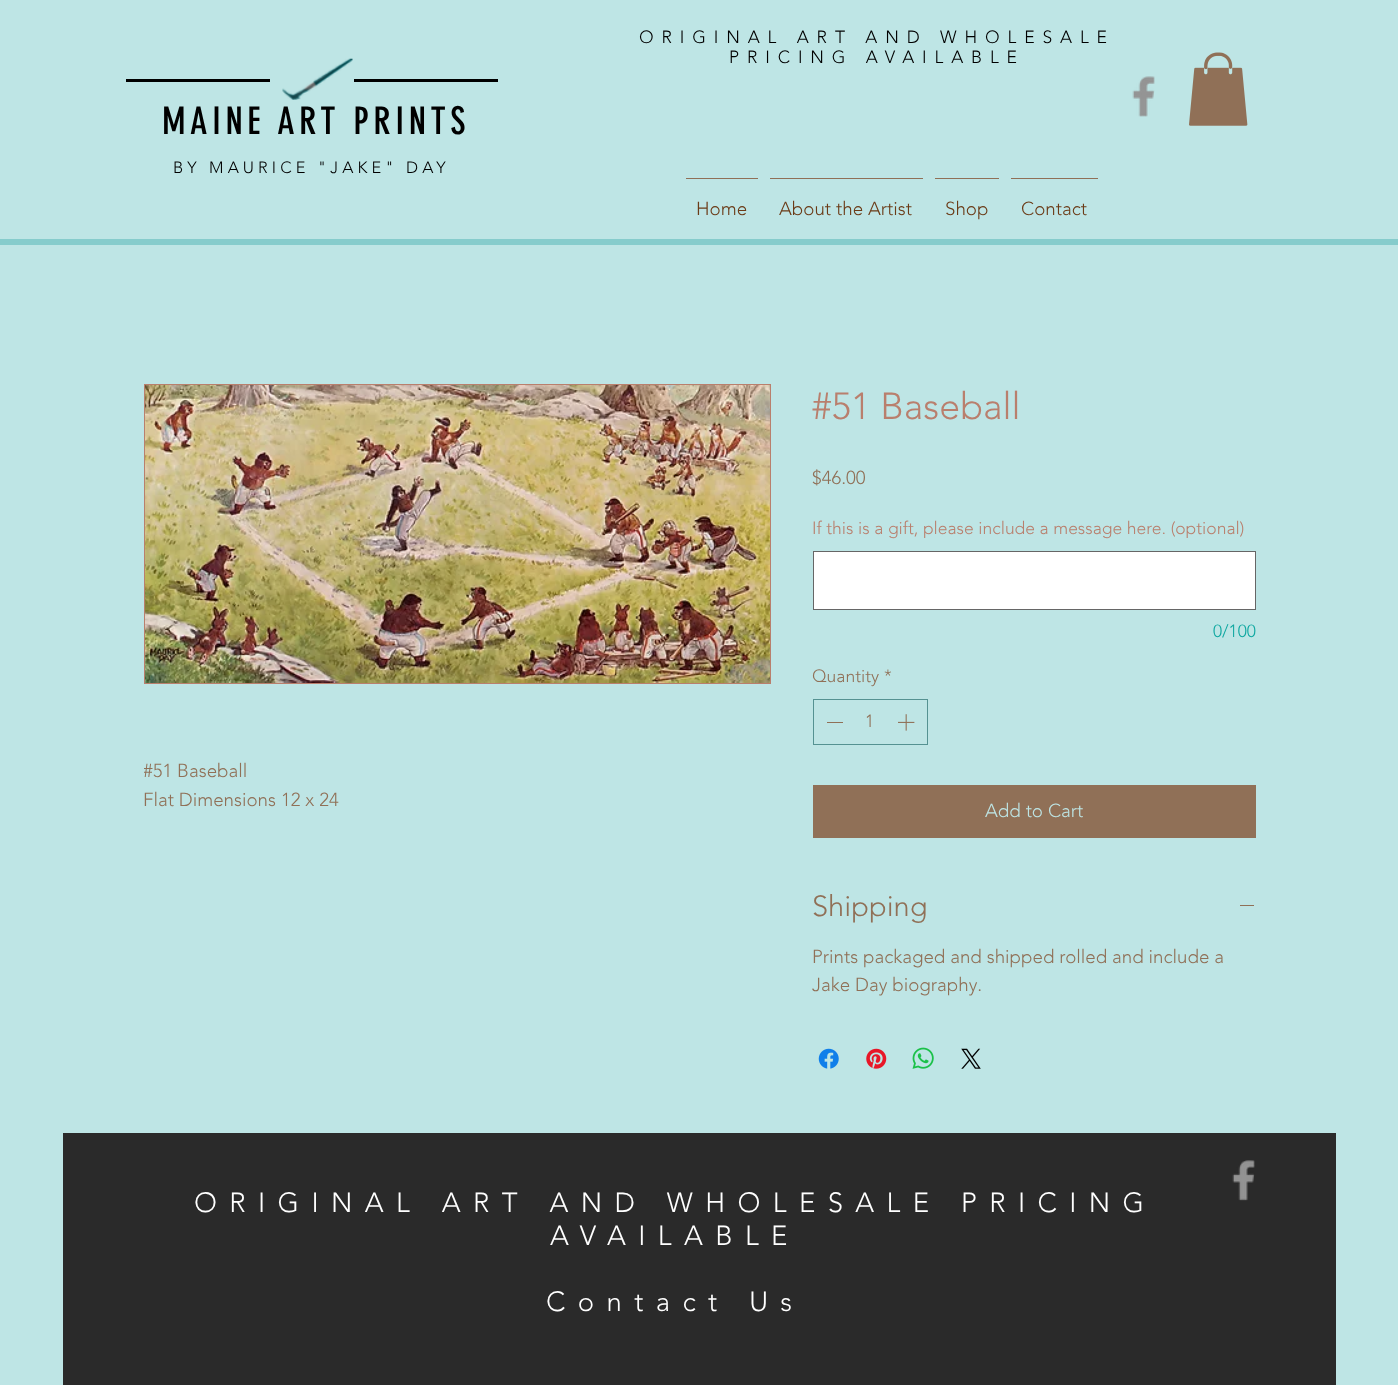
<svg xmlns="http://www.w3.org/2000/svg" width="1398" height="1385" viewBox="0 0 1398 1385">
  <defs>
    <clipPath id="clip1"><rect x="144" y="756" width="195" height="58"/></clipPath>
  </defs>
  <rect width="100%" height="100%" fill="rgb(190,229,229)"/>
  <g font-family="'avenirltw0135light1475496'" font-size="17.5" font-weight="300" letter-spacing="7.9" fill="rgb(0,0,0)">
    <text x="639" y="43">ORIGINAL ART AND WHOLESALE</text>
    <text x="729" y="63">PRICING AVAILABLE</text>
  </g>
  <image x="1132" y="76" width="23" height="41" href="pic1.png"/>
  <image x="1189" y="52" width="59" height="74" href="pic2.png"/>
  <rect x="126" y="79" width="144" height="3" fill="rgb(0,0,0)"/>
  <image x="282" y="58" width="71" height="42" href="pic3.png"/>
  <rect x="354" y="79" width="144" height="3" fill="rgb(0,0,0)"/>
  <text x="162" y="134" font-family="'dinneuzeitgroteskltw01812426'" font-size="37.5" letter-spacing="4.5" fill="rgb(0,0,0)">MAINE ART PRINTS</text>
  <text x="173" y="173" font-family="'avenirltw0135light1475496'" font-size="16.25" font-weight="300" letter-spacing="4.1" fill="rgb(0,0,0)">BY MAURICE "JAKE" DAY</text>
  <rect x="686" y="178" width="72" height="1" fill="rgb(144,112,87)"/>
  <text x="696" y="215" font-family="'avenirltw0135light1475496'" font-size="18.75" font-weight="300" fill="rgb(107,59,23)">Home</text>
  <rect x="770" y="178" width="153" height="1" fill="rgb(144,112,87)"/>
  <text x="779" y="215" font-family="'avenirltw0135light1475496'" font-size="18.75" font-weight="300" fill="rgb(107,59,23)">About the Artist</text>
  <rect x="935" y="178" width="64" height="1" fill="rgb(144,112,87)"/>
  <text x="945" y="215" font-family="'avenirltw0135light1475496'" font-size="18.75" font-weight="300" fill="rgb(107,59,23)">Shop</text>
  <rect x="1011" y="178" width="87" height="1" fill="rgb(144,112,87)"/>
  <text x="1021" y="215" font-family="'avenirltw0135light1475496'" font-size="18.75" font-weight="300" fill="rgb(107,59,23)">Contact</text>
  <rect x="0" y="239" width="1398" height="6" fill="rgb(134,204,204)"/>
  <rect x="144.5" y="384.5" width="626" height="299" fill="none" stroke="rgb(185,127,109)"/>
  <image x="145" y="385" width="625" height="298" href="pic4.png"/>
  <g clip-path="url(#clip1)">
    <text x="143" y="777" font-family="'avenirltw0135light1475496'" font-size="18.75" font-weight="300" fill="rgb(144,112,87)">#51 Baseball</text>
  </g>
  <text x="143" y="806" font-family="'avenirltw0135light1475496'" font-size="18.75" font-weight="300" fill="rgb(144,112,87)">Flat Dimensions 12 x 24</text>
  <text x="812" y="419" font-family="'avenirltw0135light1475496'" font-size="37.5" font-weight="300" fill="rgb(185,127,109)">#51 Baseball</text>
  <text x="812" y="484" font-family="'avenirltw0135light1475496'" font-size="18.75" font-weight="300" fill="rgb(144,112,87)">$46.00</text>
  <text x="812" y="534" font-family="'avenirltw0135light1475496'" font-size="17.5" font-weight="300" fill="rgb(185,127,109)">If this is a gift, please include a message here. (optional)</text>
  <rect x="813.5" y="551.5" width="442" height="58" fill="rgb(255,255,255)" stroke="rgb(102,102,102)"/>
  <text x="1213" y="637" font-family="'avenirltw0135light1475496'" font-size="17.5" font-weight="300" fill="rgb(15,168,161)">0/100</text>
  <g font-family="'avenirltw0135light1475496'" font-size="17.5" font-weight="300" fill="rgb(144,112,87)">
    <text x="812" y="682">Quantity</text>
    <text x="884" y="682">*</text>
  </g>
  <rect x="813.5" y="699.5" width="114" height="45" fill="none" stroke="rgb(85,146,146)"/>
  <rect x="827" y="722" width="16" height="1" fill="rgb(144,112,87)"/>
  <text x="865" y="727" font-family="'avenirltw0135light1475496'" font-size="17.5" font-weight="300" fill="rgb(144,112,87)">1</text>
  <image x="898" y="714" width="17" height="17" href="pic5.png"/>
  <rect x="813" y="785" width="443" height="53" fill="rgb(144,112,87)"/>
  <text x="985" y="817" font-family="'avenirltw0135light1475496'" font-size="18.75" font-weight="300" fill="rgb(190,229,229)">Add to Cart</text>
  <text x="812" y="916" font-family="'avenirltw0135light1475496'" font-size="29" font-weight="300" fill="rgb(144,112,87)">Shipping</text>
  <rect x="1240" y="905" width="14" height="1" fill="rgb(144,112,87)"/>
  <g font-family="'avenirltw0135light1475496'" font-size="18.75" font-weight="300" fill="rgb(144,112,87)">
    <text>
      <tspan x="812" y="963">Prints packaged and shipped rolled and include a</tspan>
      <tspan x="812" y="991">Jake Day biography.</tspan>
    </text>
  </g>
  <image x="818" y="1048" width="21" height="21" href="pic6.png"/>
  <image x="866" y="1048" width="21" height="21" href="pic7.png"/>
  <image x="912" y="1047" width="22" height="22" href="pic8.png"/>
  <image x="961" y="1048" width="20" height="21" href="pic9.png"/>
  <rect x="63" y="1133" width="1273" height="252" fill="rgb(42,42,42)"/>
  <image x="1232" y="1160" width="23" height="41" href="pic10.png"/>
  <g font-family="'avenirltw0135light1475496'" font-size="27.5" font-weight="300" letter-spacing="12.4" fill="rgb(255,255,255)">
    <text x="194" y="1212">ORIGINAL ART AND WHOLESALE PRICING</text>
    <text x="550" y="1245">AVAILABLE</text>
    <text x="546" y="1311">Contact Us</text>
  </g>
</svg>
